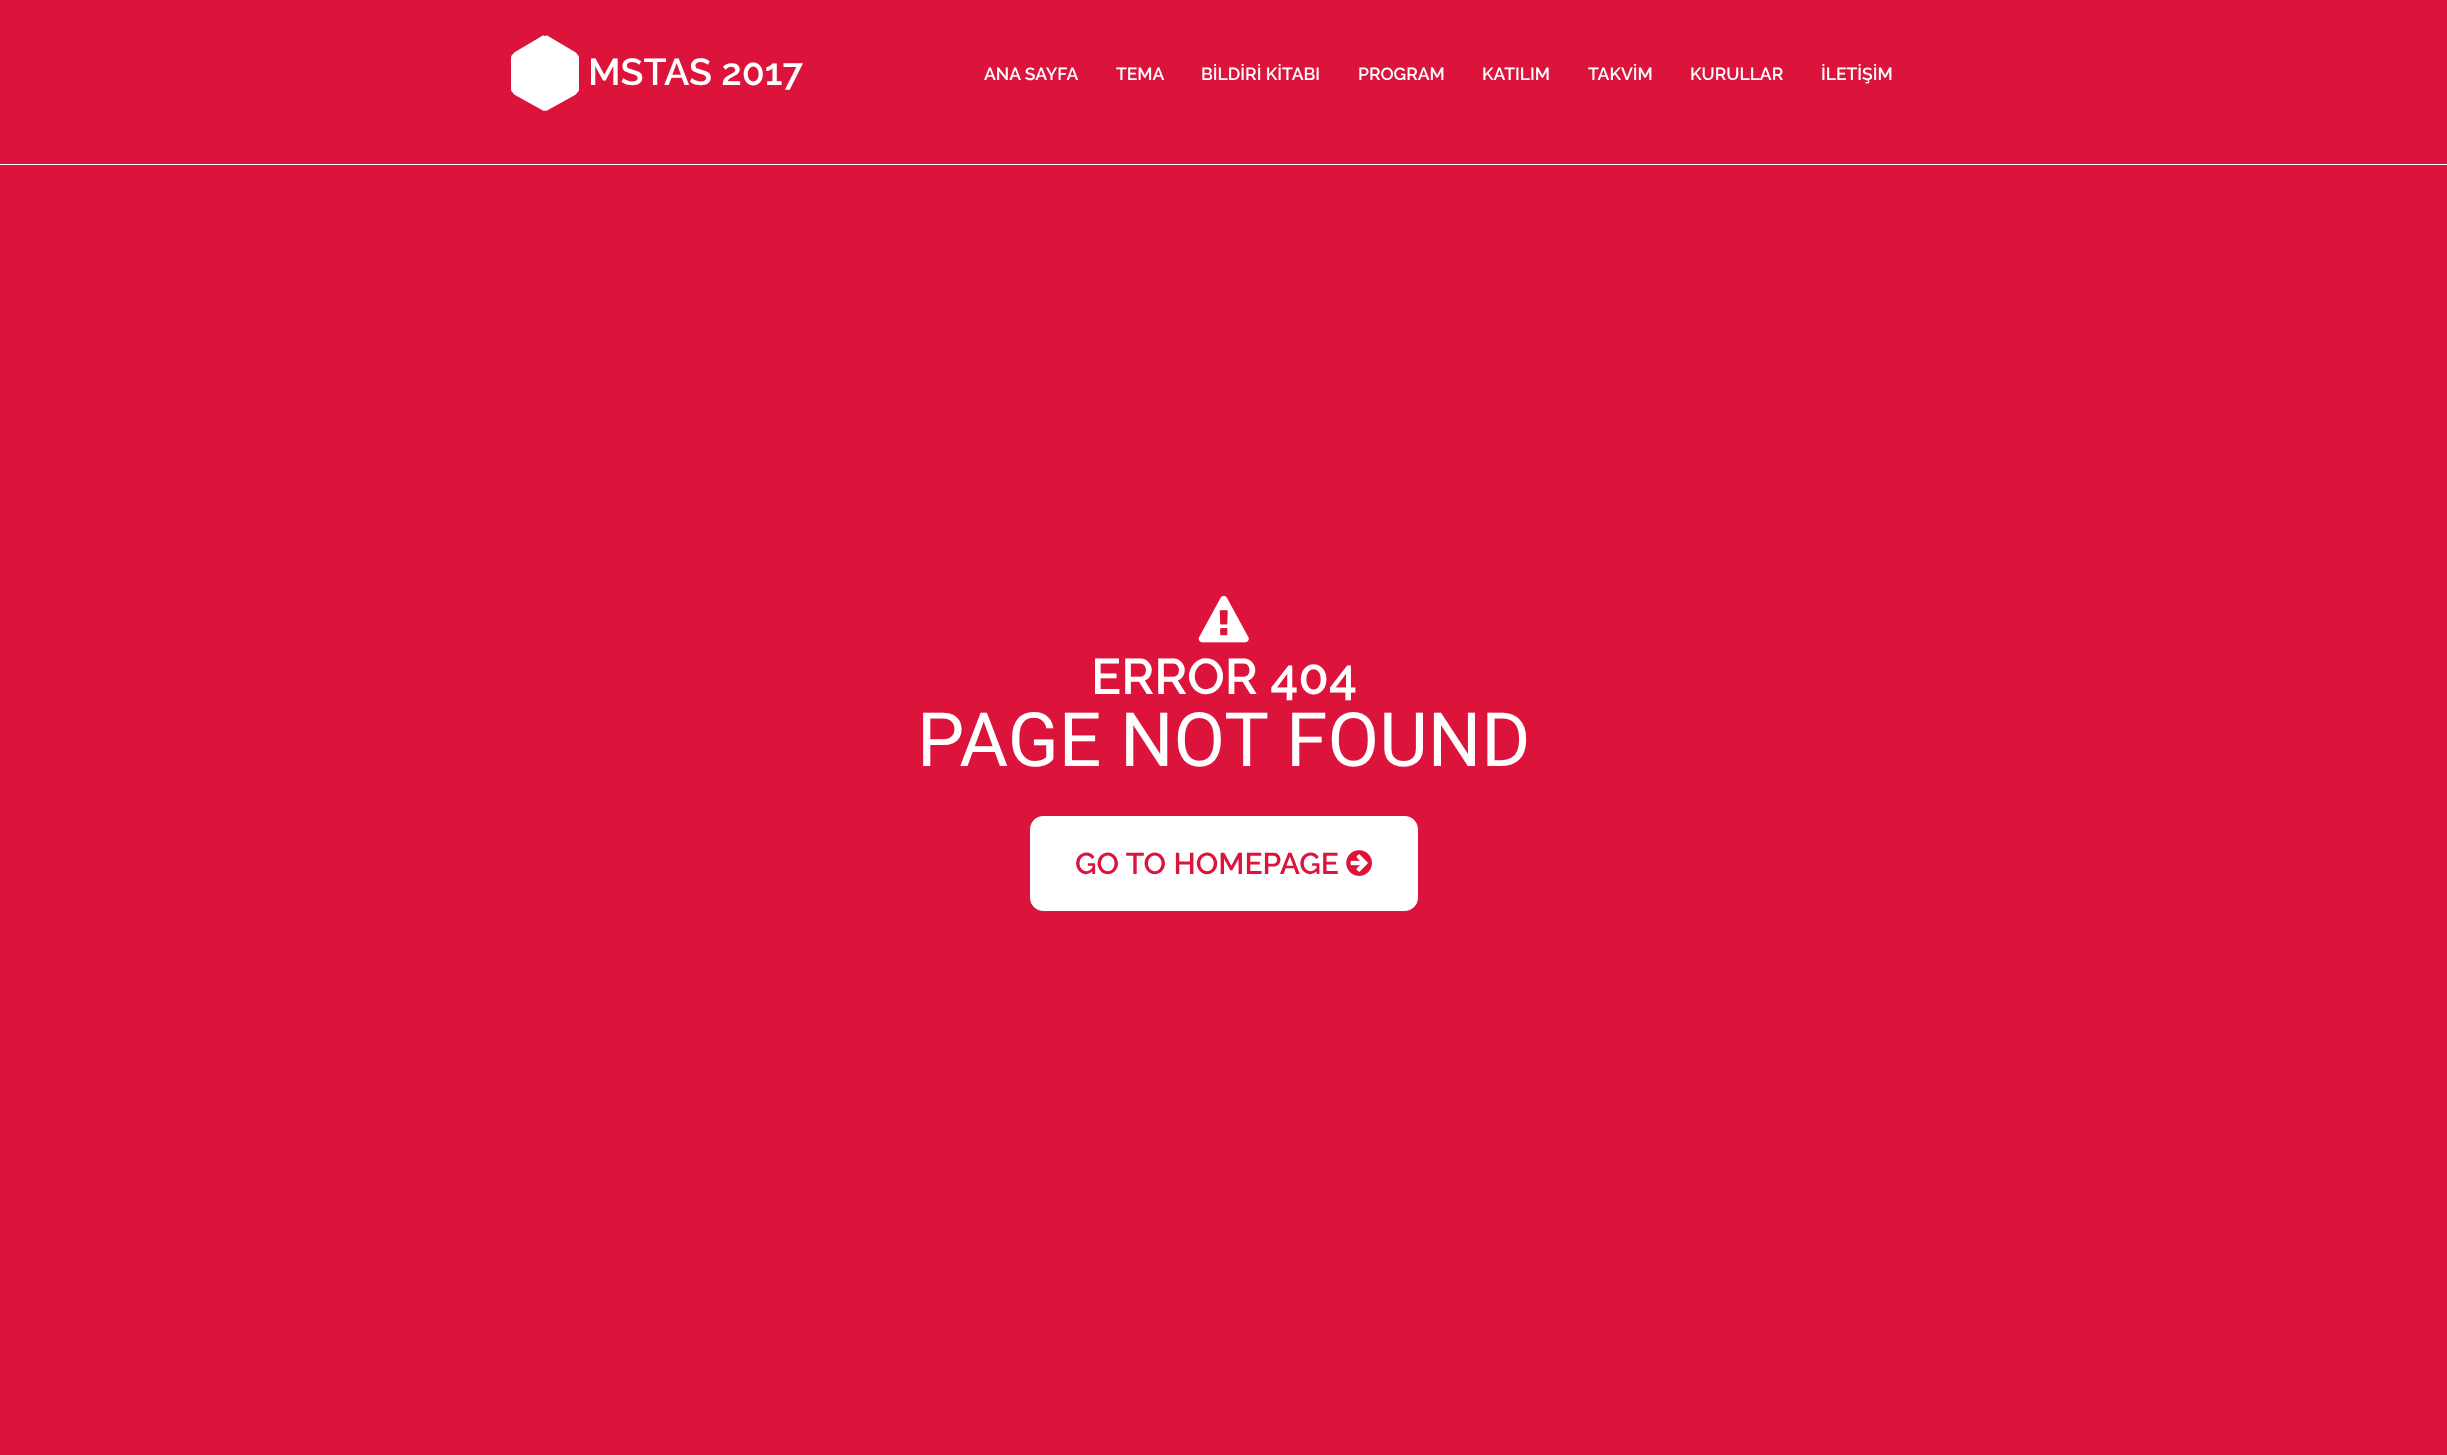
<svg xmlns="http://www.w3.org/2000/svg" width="2447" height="1455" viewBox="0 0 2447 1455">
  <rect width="100%" height="100%" fill="rgb(220,20,60)"/>
  <rect x="0" y="164" width="2447" height="1" fill="rgb(255,255,255)"/>
  <rect x="511" y="54" width="68" height="39" rx="4" fill="rgb(255,255,255)"/>
  <path d="M547 38L577 90C578 91 577 94 575 95L548 110C547 111 544 111 543 109L513 57C512 55 513 53 515 52L542 36C543 35 546 36 547 38Z" fill="rgb(255,255,255)"/>
  <path d="M513 90L543 38C544 36 547 35 548 36L575 52C577 53 578 55 577 57L547 109C546 111 543 111 542 110L515 95C513 94 512 91 513 90Z" fill="rgb(255,255,255)"/>
  <text x="588" y="85" font-family="Raleway" font-size="37.5" font-weight="100" fill="rgb(255,255,255)">MSTAS 2017</text>
  <g font-family="Raleway" font-size="17.5" font-weight="100" fill="rgb(255,255,255)">
    <text x="984" y="80">ANA SAYFA</text>
    <text x="1116" y="80">TEMA</text>
    <text x="1201" y="80">BİLDİRİ KİTABI</text>
    <text x="1358" y="80">PROGRAM</text>
    <text x="1482" y="80">KATILIM</text>
    <text x="1588" y="80">TAKVİM</text>
    <text x="1690" y="80">KURULLAR</text>
    <text x="1821" y="80">İLETİŞİM</text>
  </g>
  <image x="1198" y="595" width="51" height="48" href="pic1.png"/>
  <text x="1091" y="694" font-family="Raleway" font-size="50" font-weight="100" fill="rgb(255,255,255)">ERROR 404</text>
  <text x="917" y="766" font-family="Roboto" font-size="75" fill="rgb(255,255,255)">PAGE NOT FOUND</text>
  <rect x="1030.5" y="816.5" width="387" height="94" rx="12.5" fill="rgb(255,255,255)" stroke="rgb(255,255,255)"/>
  <text x="1075" y="874" font-family="Raleway" font-size="30" font-weight="100" fill="rgb(220,20,60)">GO TO HOMEPAGE</text>
  <image x="1346" y="850" width="26" height="26" href="pic2.png"/>
</svg>
